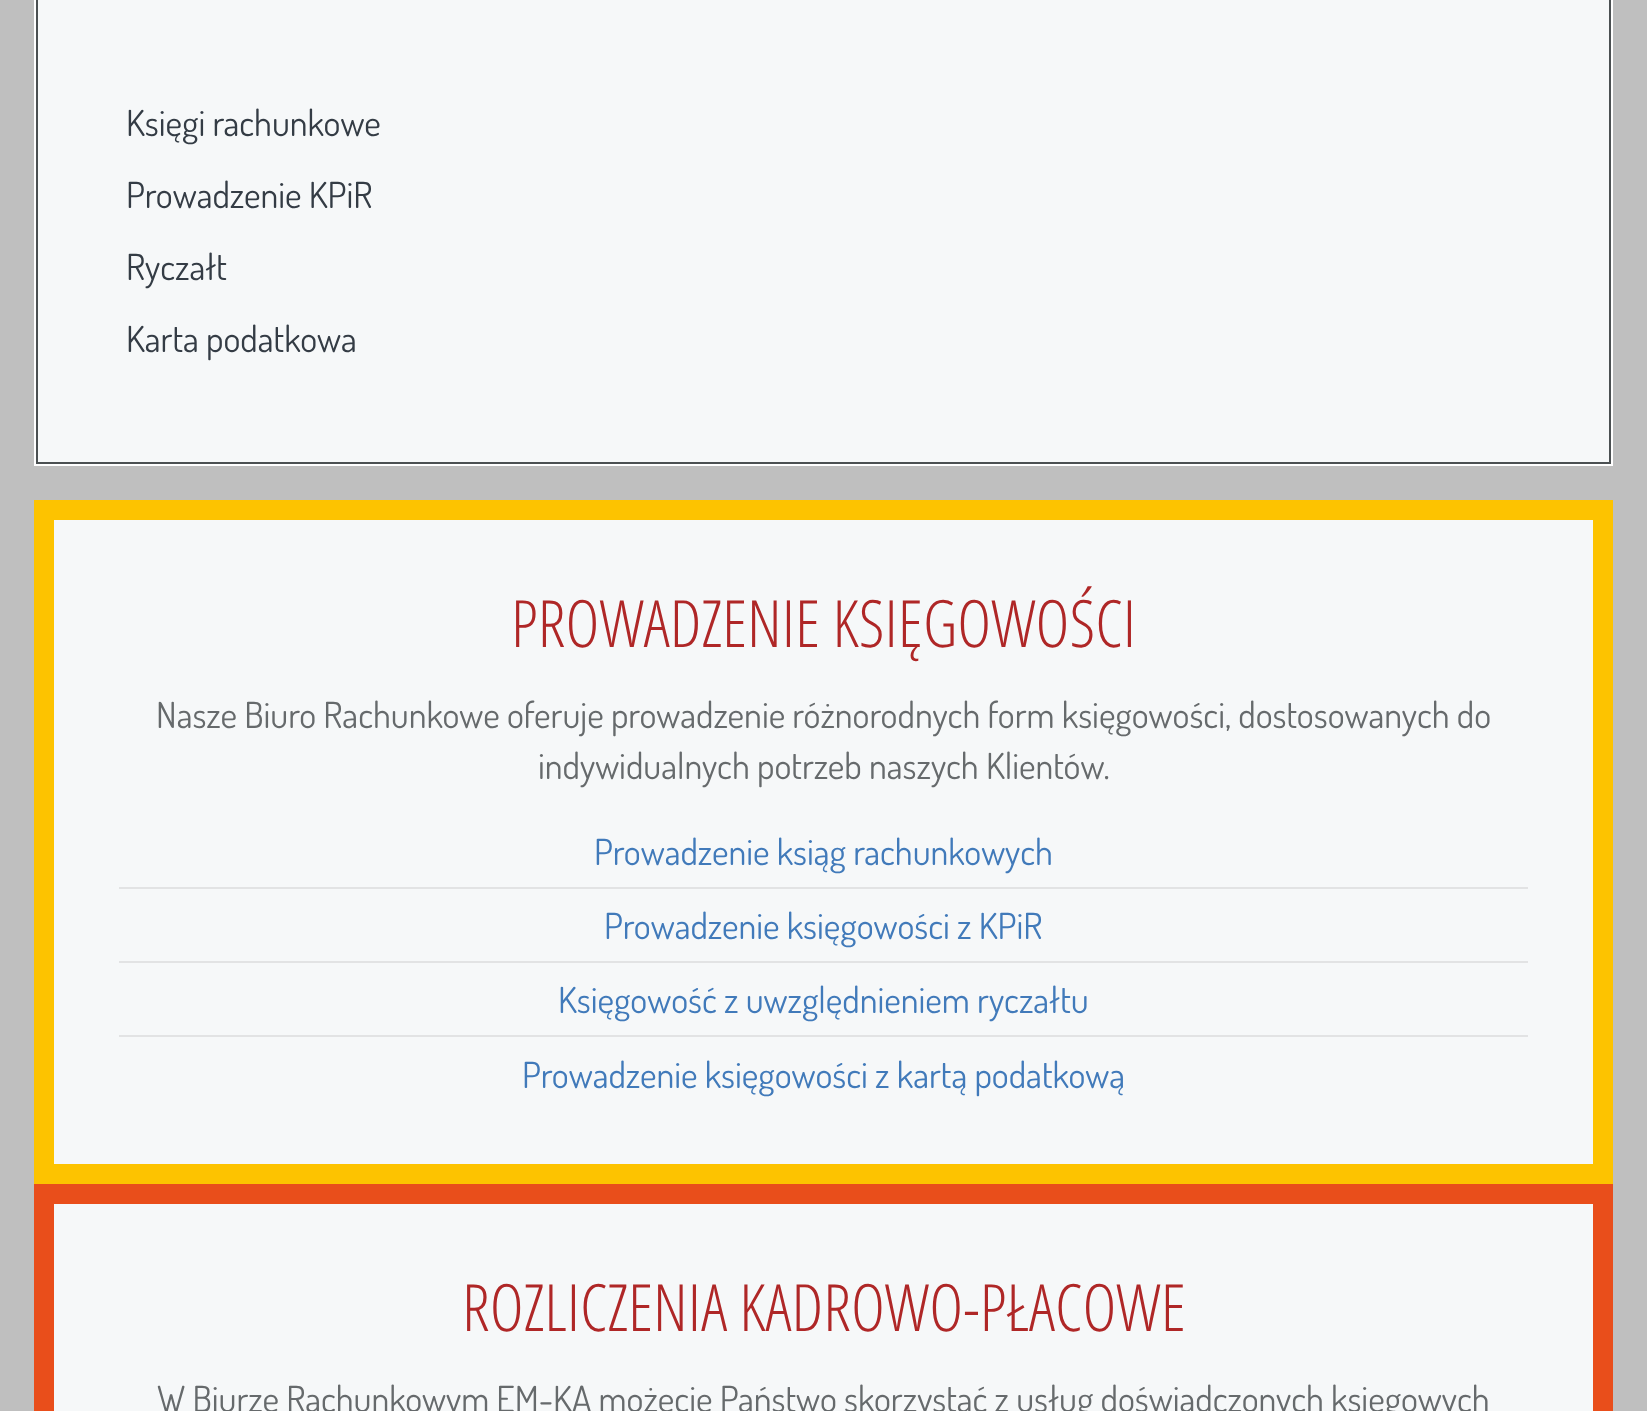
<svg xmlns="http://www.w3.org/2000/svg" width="1647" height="1411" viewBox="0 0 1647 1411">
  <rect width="100%" height="100%" fill="rgb(191,191,191)"/>
  <rect x="37" y="-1" width="1573" height="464" fill="rgb(246,248,249)" stroke="rgb(75,80,82)" stroke-width="2"/>
  <rect x="35" y="-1" width="1577" height="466" fill="none" stroke="rgb(255,255,255)" stroke-width="2"/>
  <g font-family="Dosis" font-size="36" fill="rgb(52,60,69)">
    <text x="126" y="136">Księgi rachunkowe</text>
    <text x="126" y="208">Prowadzenie KPiR</text>
    <text x="126" y="280">Ryczałt</text>
    <text x="126" y="352">Karta podatkowa</text>
  </g>
  <rect x="53" y="519" width="1541" height="646" fill="rgb(246,248,249)" stroke="rgb(253,195,0)" stroke-width="2"/>
  <rect x="43" y="509" width="1561" height="666" fill="none" stroke="rgb(253,195,0)" stroke-width="18"/>
  <text x="511" y="647" font-family="Open Sans Condensed" font-size="65.25" font-weight="300" fill="rgb(175,39,39)">PROWADZENIE KSIĘGOWOŚCI</text>
  <g font-family="Dosis" font-size="36" fill="rgb(102,106,108)">
    <text x="156" y="728">Nasze Biuro Rachunkowe oferuje prowadzenie różnorodnych form księgowości, dostosowanych do</text>
    <text x="538" y="779">indywidualnych potrzeb naszych Klientów.</text>
  </g>
  <text x="594" y="865" font-family="Dosis" font-size="36" fill="rgb(65,122,186)">Prowadzenie ksiąg rachunkowych</text>
  <rect x="119" y="887" width="1409" height="2" fill="rgb(226,227,228)"/>
  <text x="604" y="939" font-family="Dosis" font-size="36" fill="rgb(65,122,186)">Prowadzenie księgowości z KPiR</text>
  <rect x="119" y="961" width="1409" height="2" fill="rgb(226,227,228)"/>
  <text x="558" y="1013" font-family="Dosis" font-size="36" fill="rgb(65,122,186)">Księgowość z uwzględnieniem ryczałtu</text>
  <rect x="119" y="1035" width="1409" height="2" fill="rgb(226,227,228)"/>
  <text x="522" y="1088" font-family="Dosis" font-size="36" fill="rgb(65,122,186)">Prowadzenie księgowości z kartą podatkową</text>
  <rect x="53" y="1203" width="1541" height="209" fill="rgb(246,248,249)" stroke="rgb(233,78,27)" stroke-width="2"/>
  <rect x="43" y="1193" width="1561" height="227" fill="none" stroke="rgb(233,78,27)" stroke-width="18"/>
  <text x="462" y="1331" font-family="Open Sans Condensed" font-size="65.25" font-weight="300" fill="rgb(175,39,39)">ROZLICZENIA KADROWO-PŁACOWE</text>
  <text x="157" y="1412" font-family="Dosis" font-size="36" fill="rgb(102,106,108)">W Biurze Rachunkowym EM-KA możecie Państwo skorzystać z usług doświadczonych księgowych</text>
</svg>
